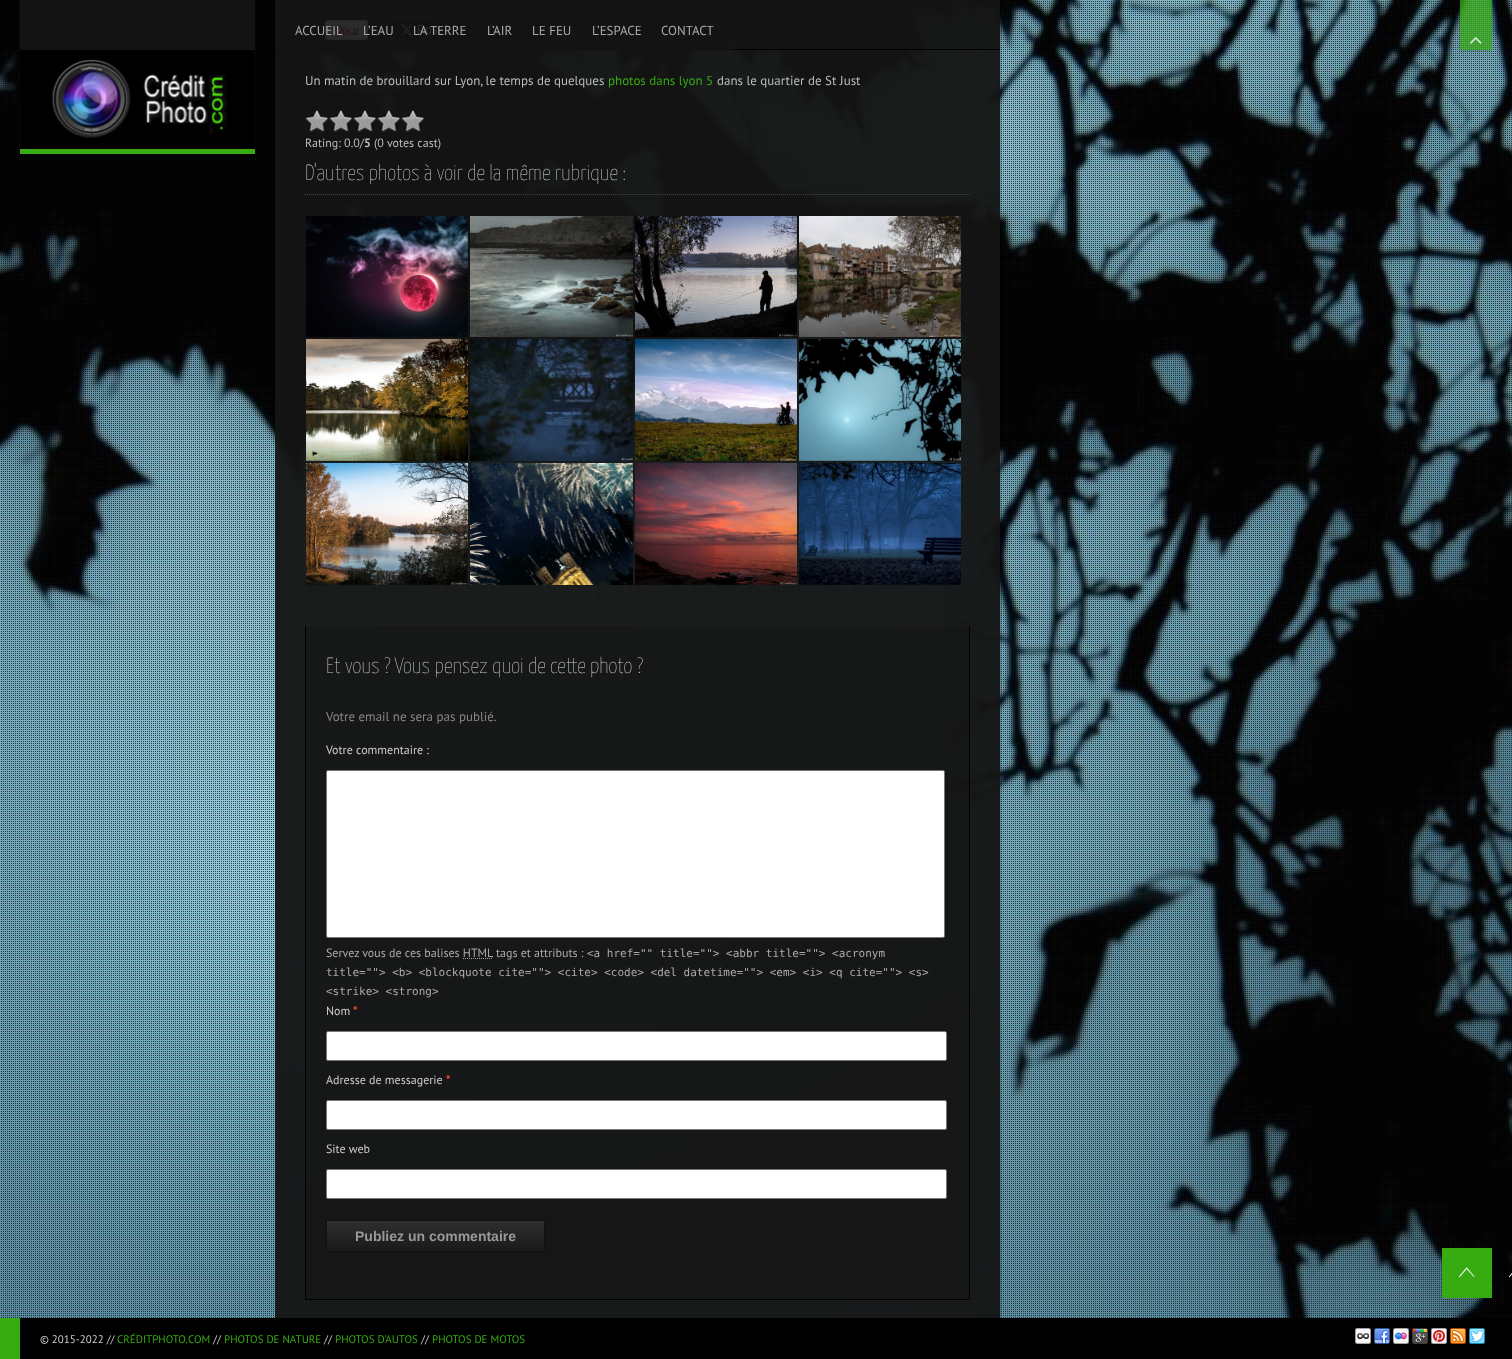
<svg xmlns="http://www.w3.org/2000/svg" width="1512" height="1359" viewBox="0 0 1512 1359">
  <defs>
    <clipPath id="clip1"><path d="M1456 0H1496V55H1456ZM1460 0H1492V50H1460Z" clip-rule="evenodd"/></clipPath>
    <clipPath id="clip2"><rect x="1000" y="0" width="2" height="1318"/></clipPath>
    <linearGradient id="g1" gradientUnits="userSpaceOnUse" x1="327" y1="1221" x2="327" y2="1251"><stop offset="0" stop-color="rgb(46,46,46)"/><stop offset="1" stop-color="rgb(26,26,26)"/></linearGradient>
  </defs>
  <rect width="100%" height="100%" fill="rgb(255,255,255)"/>
  <image x="0" y="0" width="1512" height="1318" href="pic1.png"/>
  <image x="1" y="1" width="1511" height="1317" href="pic3.png"/>
  <g clip-path="url(#clip1)">
    <rect x="1460" y="1" width="32" height="50" fill="rgba(0,0,0,0.25)" filter="blur(1px)"/>
  </g>
  <rect x="1460" y="0" width="32" height="50" fill="rgba(55,171,17,0.75)"/>
  <image x="1470" y="37" width="12" height="7" href="pic2.png"/>
  <rect x="20" y="0" width="235" height="129" fill="rgba(20,20,20,0.95)"/>
  <rect x="20" y="0" width="235" height="149" fill="rgba(20,20,20,0.9)"/>
  <rect x="20" y="149" width="235" height="5" fill="rgb(55,171,17)"/>
  <image x="20" y="50" width="235" height="99" href="pic4.png"/>
  <g clip-path="url(#clip2)">
    <rect x="276" y="-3" width="725" height="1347" fill="rgba(0,0,0,0.3)" filter="blur(1px)"/>
  </g>
  <rect x="275" y="0" width="725" height="1318" fill="rgba(20,20,20,0.95)"/>
  <rect x="363" y="0" width="637" height="49" fill="rgba(20,20,20,0.5)"/>
  <rect x="275" y="49" width="725" height="1" fill="rgb(0,0,0)"/>
  <image x="325" y="20" width="43" height="20" href="pic5.png"/>
  <image x="388" y="20" width="65" height="20" href="pic6.png"/>
  <rect x="275" y="0" width="459" height="51" fill="rgba(20,20,20,0.9)"/>
  <g font-family="PT Sans" font-size="13" fill="rgb(170,170,170)">
    <text x="295" y="35">ACCUEIL</text>
    <text x="363" y="35">L’EAU</text>
    <text x="413" y="35">LA TERRE</text>
    <text x="487" y="35">L’AIR</text>
    <text x="532" y="35">LE FEU</text>
    <text x="592" y="35">L’ESPACE</text>
    <text x="661" y="35">CONTACT</text>
  </g>
  <text x="305" y="85" font-family="PT Sans" font-size="13" fill="rgb(187,187,187)">Un matin de brouillard sur Lyon, le temps de quelques</text>
  <text x="608" y="85" font-family="PT Sans" font-size="13" fill="rgb(55,171,17)">photos dans lyon 5</text>
  <text x="717" y="85" font-family="PT Sans" font-size="13" fill="rgb(187,187,187)">dans le quartier de St Just</text>
  <image x="305" y="110" width="120" height="22" href="pic7.png"/>
  <text x="305" y="147" font-family="PT Sans" font-size="12" fill="rgb(187,187,187)">Rating: 0.0/</text>
  <text x="364" y="147" font-family="PT Sans" font-size="12" font-weight="bold" fill="rgb(187,187,187)">5</text>
  <text x="374" y="147" font-family="PT Sans" font-size="12" fill="rgb(187,187,187)">(0 votes cast)</text>
  <path d="M305 194.5H970" fill="none" stroke="rgb(68,68,68)" stroke-dasharray="1 1"/>
  <text x="305" y="180" font-family="Yanone Kaffeesatz" font-size="22" font-weight="200" fill="rgb(204,204,204)">D'autres photos à voir de la même rubrique :</text>
  <image x="306" y="216" width="162" height="121" href="pic8.png"/>
  <image x="470" y="216" width="163" height="121" href="pic9.png"/>
  <image x="635" y="216" width="162" height="121" href="pic10.png"/>
  <image x="799" y="216" width="162" height="121" href="pic11.png"/>
  <image x="306" y="339" width="162" height="122" href="pic12.png"/>
  <image x="470" y="339" width="163" height="122" href="pic13.png"/>
  <image x="635" y="339" width="162" height="122" href="pic14.png"/>
  <image x="799" y="339" width="162" height="122" href="pic15.png"/>
  <image x="306" y="463" width="162" height="122" href="pic16.png"/>
  <image x="470" y="463" width="163" height="122" href="pic17.png"/>
  <image x="635" y="463" width="162" height="122" href="pic18.png"/>
  <image x="799" y="463" width="162" height="122" href="pic19.png"/>
  <rect x="306" y="627" width="663" height="672" fill="rgba(20,20,20,0.5)"/>
  <rect x="305" y="626" width="665" height="1" fill="rgb(26,26,26)"/>
  <rect x="969" y="626" width="1" height="674" fill="rgb(0,0,0)"/>
  <rect x="305" y="1299" width="665" height="1" fill="rgb(0,0,0)"/>
  <rect x="305" y="626" width="1" height="674" fill="rgb(0,0,0)"/>
  <text x="326" y="673" font-family="Yanone Kaffeesatz" font-size="22" font-weight="200" fill="rgb(204,204,204)">Et vous ? Vous pensez quoi de cette photo ?</text>
  <text x="326" y="721" font-family="PT Sans" font-size="13" fill="rgb(134,134,134)">Votre email ne sera pas publié.</text>
  <text x="326" y="754" font-family="PT Sans" font-size="12" fill="rgb(204,204,204)">Votre commentaire :</text>
  <rect x="326.5" y="770.5" width="618" height="167" rx="1.5" fill="rgb(255,255,255)" stroke="rgb(118,118,118)"/>
  <g font-family="PT Sans" font-size="12" fill="rgb(170,170,170)">
    <text x="326" y="957">Servez vous de ces balises HTML</text>
    <text x="496" y="957">tags et attributs :</text>
  </g>
  <text x="587" y="957" font-family="DejaVu Sans Mono" font-size="11" fill="rgb(170,170,170)">&lt;a href="" title=""&gt; &lt;abbr title=""&gt; &lt;acronym</text>
  <path d="M463 958.5H493" fill="none" stroke="rgb(170,170,170)" stroke-dasharray="1 1"/>
  <g font-family="DejaVu Sans Mono" font-size="11" fill="rgb(170,170,170)">
    <text>
      <tspan x="326" y="976">title=""&gt; &lt;b&gt; &lt;blockquote cite=""&gt; &lt;cite&gt; &lt;code&gt; &lt;del datetime=""&gt; &lt;em&gt; &lt;i&gt; &lt;q cite=""&gt; &lt;s&gt;</tspan>
      <tspan x="326" y="995">&lt;strike&gt; &lt;strong&gt;</tspan>
    </text>
  </g>
  <text x="326" y="1015" font-family="PT Sans" font-size="12" fill="rgb(204,204,204)">Nom</text>
  <text x="353" y="1015" font-family="PT Sans" font-size="12" font-weight="bold" fill="rgb(255,75,51)">*</text>
  <rect x="326.5" y="1031.5" width="620" height="29" rx="1.5" fill="rgb(255,255,255)" stroke="rgb(118,118,118)"/>
  <text x="326" y="1084" font-family="PT Sans" font-size="12" fill="rgb(204,204,204)">Adresse de messagerie</text>
  <text x="446" y="1084" font-family="PT Sans" font-size="12" font-weight="bold" fill="rgb(255,75,51)">*</text>
  <rect x="326.5" y="1100.5" width="620" height="29" rx="1.5" fill="rgb(255,255,255)" stroke="rgb(118,118,118)"/>
  <text x="326" y="1153" font-family="PT Sans" font-size="12" fill="rgb(204,204,204)">Site web</text>
  <rect x="326.5" y="1169.5" width="620" height="29" rx="1.5" fill="rgb(255,255,255)" stroke="rgb(118,118,118)"/>
  <rect x="327" y="1221" width="217" height="30" fill="url(#g1)"/>
  <rect x="326.5" y="1220.5" width="218" height="31" fill="none" stroke="rgb(17,17,17)"/>
  <text x="355" y="1241" font-family="Liberation Sans" font-size="14" font-weight="bold" fill="rgb(153,153,153)">Publiez un commentaire</text>
  <rect x="1442" y="1248" width="50" height="50" fill="rgb(55,171,17)"/>
  <image x="1459" y="1267" width="53" height="11" href="pic20.png"/>
  <rect x="20" y="1318" width="1492" height="41" fill="rgb(0,0,0)"/>
  <rect x="0" y="1318" width="20" height="41" fill="rgb(55,171,17)"/>
  <text x="40" y="1343" font-family="PT Sans" font-size="11" fill="rgb(204,204,204)">© 2015-2022 //</text>
  <text x="117" y="1343" font-family="PT Sans" font-size="11" fill="rgb(55,171,17)">CRÉDITPHOTO.COM</text>
  <text x="213" y="1343" font-family="PT Sans" font-size="11" fill="rgb(204,204,204)">//</text>
  <text x="224" y="1343" font-family="PT Sans" font-size="11" fill="rgb(55,171,17)">PHOTOS DE NATURE</text>
  <text x="324" y="1343" font-family="PT Sans" font-size="11" fill="rgb(204,204,204)">//</text>
  <text x="335" y="1343" font-family="PT Sans" font-size="11" fill="rgb(55,171,17)">PHOTOS D'AUTOS</text>
  <text x="421" y="1343" font-family="PT Sans" font-size="11" fill="rgb(204,204,204)">//</text>
  <text x="432" y="1343" font-family="PT Sans" font-size="11" fill="rgb(55,171,17)">PHOTOS DE MOTOS</text>
  <image x="1355" y="1328" width="16" height="16" href="pic21.png"/>
  <image x="1374" y="1328" width="16" height="16" href="pic22.png"/>
  <image x="1393" y="1328" width="16" height="16" href="pic23.png"/>
  <image x="1412" y="1328" width="16" height="16" href="pic24.png"/>
  <image x="1431" y="1328" width="16" height="16" href="pic25.png"/>
  <image x="1450" y="1328" width="16" height="16" href="pic26.png"/>
  <image x="1469" y="1328" width="16" height="16" href="pic27.png"/>
</svg>
